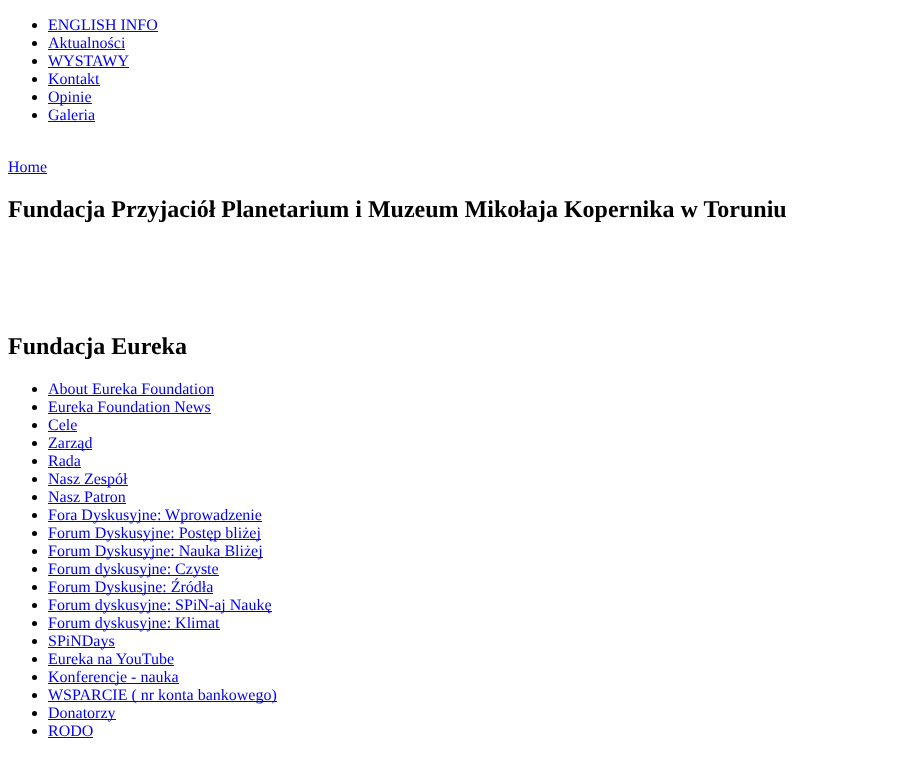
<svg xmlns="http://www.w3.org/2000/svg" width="905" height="766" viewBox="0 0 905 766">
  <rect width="100%" height="100%" fill="rgb(255,255,255)"/>
  <circle cx="34.5" cy="25.5" r="2.5" fill="rgb(0,0,0)"/>
  <text x="48" y="30" font-family="Liberation Serif" font-size="16" fill="rgb(0,0,238)">ENGLISH INFO</text>
  <rect x="48" y="31" width="110" height="1" fill="rgb(0,0,238)"/>
  <circle cx="34.5" cy="43.5" r="2.5" fill="rgb(0,0,0)"/>
  <text x="48" y="48" font-family="Liberation Serif" font-size="16" fill="rgb(0,0,238)">Aktualności</text>
  <rect x="48" y="49" width="77" height="1" fill="rgb(0,0,238)"/>
  <circle cx="34.5" cy="61.5" r="2.5" fill="rgb(0,0,0)"/>
  <text x="48" y="66" font-family="Liberation Serif" font-size="16" fill="rgb(0,0,238)">WYSTAWY</text>
  <rect x="48" y="67" width="81" height="1" fill="rgb(0,0,238)"/>
  <circle cx="34.5" cy="79.5" r="2.5" fill="rgb(0,0,0)"/>
  <text x="48" y="84" font-family="Liberation Serif" font-size="16" fill="rgb(0,0,238)">Kontakt</text>
  <rect x="48" y="85" width="52" height="1" fill="rgb(0,0,238)"/>
  <circle cx="34.5" cy="97.5" r="2.5" fill="rgb(0,0,0)"/>
  <rect x="48" y="103" width="44" height="1" fill="rgb(0,0,238)"/>
  <text x="48" y="102" font-family="Liberation Serif" font-size="16" fill="rgb(0,0,238)">Opinie</text>
  <circle cx="34.5" cy="115.5" r="2.5" fill="rgb(0,0,0)"/>
  <text x="48" y="120" font-family="Liberation Serif" font-size="16" fill="rgb(0,0,238)">Galeria</text>
  <rect x="48" y="121" width="47" height="1" fill="rgb(0,0,238)"/>
  <text x="8" y="172" font-family="Liberation Serif" font-size="16" fill="rgb(0,0,238)">Home</text>
  <rect x="8" y="173" width="39" height="1" fill="rgb(0,0,238)"/>
  <g font-family="Liberation Serif" font-size="24" font-weight="bold" fill="rgb(0,0,0)">
    <text x="8" y="217">Fundacja Przyjaciół Planetarium i Muzeum Mikołaja Kopernika w Toruniu</text>
    <text x="8" y="354">Fundacja Eureka</text>
  </g>
  <circle cx="34.5" cy="389.5" r="2.5" fill="rgb(0,0,0)"/>
  <text x="48" y="394" font-family="Liberation Serif" font-size="16" fill="rgb(0,0,238)">About Eureka Foundation</text>
  <rect x="48" y="395" width="166" height="1" fill="rgb(0,0,238)"/>
  <circle cx="34.5" cy="407.5" r="2.5" fill="rgb(0,0,0)"/>
  <text x="48" y="412" font-family="Liberation Serif" font-size="16" fill="rgb(0,0,238)">Eureka Foundation News</text>
  <rect x="48" y="413" width="163" height="1" fill="rgb(0,0,238)"/>
  <circle cx="34.5" cy="425.5" r="2.5" fill="rgb(0,0,0)"/>
  <text x="48" y="430" font-family="Liberation Serif" font-size="16" fill="rgb(0,0,238)">Cele</text>
  <rect x="48" y="431" width="29" height="1" fill="rgb(0,0,238)"/>
  <circle cx="34.5" cy="443.5" r="2.5" fill="rgb(0,0,0)"/>
  <rect x="48" y="449" width="44" height="1" fill="rgb(0,0,238)"/>
  <text x="48" y="448" font-family="Liberation Serif" font-size="16" fill="rgb(0,0,238)">Zarząd</text>
  <circle cx="34.5" cy="461.5" r="2.5" fill="rgb(0,0,0)"/>
  <text x="48" y="466" font-family="Liberation Serif" font-size="16" fill="rgb(0,0,238)">Rada</text>
  <rect x="48" y="467" width="33" height="1" fill="rgb(0,0,238)"/>
  <circle cx="34.5" cy="479.5" r="2.5" fill="rgb(0,0,0)"/>
  <rect x="48" y="485" width="80" height="1" fill="rgb(0,0,238)"/>
  <text x="48" y="484" font-family="Liberation Serif" font-size="16" fill="rgb(0,0,238)">Nasz Zespół</text>
  <circle cx="34.5" cy="497.5" r="2.5" fill="rgb(0,0,0)"/>
  <text x="48" y="502" font-family="Liberation Serif" font-size="16" fill="rgb(0,0,238)">Nasz Patron</text>
  <rect x="48" y="503" width="78" height="1" fill="rgb(0,0,238)"/>
  <circle cx="34.5" cy="515.5" r="2.5" fill="rgb(0,0,0)"/>
  <rect x="48" y="521" width="214" height="1" fill="rgb(0,0,238)"/>
  <text x="48" y="520" font-family="Liberation Serif" font-size="16" fill="rgb(0,0,238)">Fora Dyskusyjne: Wprowadzenie</text>
  <circle cx="34.5" cy="533.5" r="2.5" fill="rgb(0,0,0)"/>
  <rect x="48" y="539" width="213" height="1" fill="rgb(0,0,238)"/>
  <text x="48" y="538" font-family="Liberation Serif" font-size="16" fill="rgb(0,0,238)">Forum Dyskusyjne: Postęp bliżej</text>
  <circle cx="34.5" cy="551.5" r="2.5" fill="rgb(0,0,0)"/>
  <rect x="48" y="557" width="215" height="1" fill="rgb(0,0,238)"/>
  <text x="48" y="556" font-family="Liberation Serif" font-size="16" fill="rgb(0,0,238)">Forum Dyskusyjne: Nauka Bliżej</text>
  <circle cx="34.5" cy="569.5" r="2.5" fill="rgb(0,0,0)"/>
  <rect x="48" y="575" width="171" height="1" fill="rgb(0,0,238)"/>
  <text x="48" y="574" font-family="Liberation Serif" font-size="16" fill="rgb(0,0,238)">Forum dyskusyjne: Czyste</text>
  <circle cx="34.5" cy="587.5" r="2.5" fill="rgb(0,0,0)"/>
  <rect x="48" y="593" width="165" height="1" fill="rgb(0,0,238)"/>
  <text x="48" y="592" font-family="Liberation Serif" font-size="16" fill="rgb(0,0,238)">Forum Dyskusjne: Źródła</text>
  <circle cx="34.5" cy="605.5" r="2.5" fill="rgb(0,0,0)"/>
  <rect x="48" y="611" width="224" height="1" fill="rgb(0,0,238)"/>
  <text x="48" y="610" font-family="Liberation Serif" font-size="16" fill="rgb(0,0,238)">Forum dyskusyjne: SPiN-aj Naukę</text>
  <circle cx="34.5" cy="623.5" r="2.5" fill="rgb(0,0,0)"/>
  <rect x="48" y="629" width="172" height="1" fill="rgb(0,0,238)"/>
  <text x="48" y="628" font-family="Liberation Serif" font-size="16" fill="rgb(0,0,238)">Forum dyskusyjne: Klimat</text>
  <circle cx="34.5" cy="641.5" r="2.5" fill="rgb(0,0,0)"/>
  <rect x="48" y="647" width="67" height="1" fill="rgb(0,0,238)"/>
  <text x="48" y="646" font-family="Liberation Serif" font-size="16" fill="rgb(0,0,238)">SPiNDays</text>
  <circle cx="34.5" cy="659.5" r="2.5" fill="rgb(0,0,0)"/>
  <text x="48" y="664" font-family="Liberation Serif" font-size="16" fill="rgb(0,0,238)">Eureka na YouTube</text>
  <rect x="48" y="665" width="126" height="1" fill="rgb(0,0,238)"/>
  <circle cx="34.5" cy="677.5" r="2.5" fill="rgb(0,0,0)"/>
  <rect x="48" y="683" width="131" height="1" fill="rgb(0,0,238)"/>
  <text x="48" y="682" font-family="Liberation Serif" font-size="16" fill="rgb(0,0,238)">Konferencje - nauka</text>
  <circle cx="34.5" cy="695.5" r="2.5" fill="rgb(0,0,0)"/>
  <rect x="48" y="701" width="229" height="1" fill="rgb(0,0,238)"/>
  <text x="48" y="700" font-family="Liberation Serif" font-size="16" fill="rgb(0,0,238)">WSPARCIE ( nr konta bankowego)</text>
  <circle cx="34.5" cy="713.5" r="2.5" fill="rgb(0,0,0)"/>
  <rect x="48" y="719" width="68" height="1" fill="rgb(0,0,238)"/>
  <text x="48" y="718" font-family="Liberation Serif" font-size="16" fill="rgb(0,0,238)">Donatorzy</text>
  <circle cx="34.5" cy="731.5" r="2.5" fill="rgb(0,0,0)"/>
  <text x="48" y="736" font-family="Liberation Serif" font-size="16" fill="rgb(0,0,238)">RODO</text>
  <rect x="48" y="737" width="45" height="1" fill="rgb(0,0,238)"/>
</svg>
